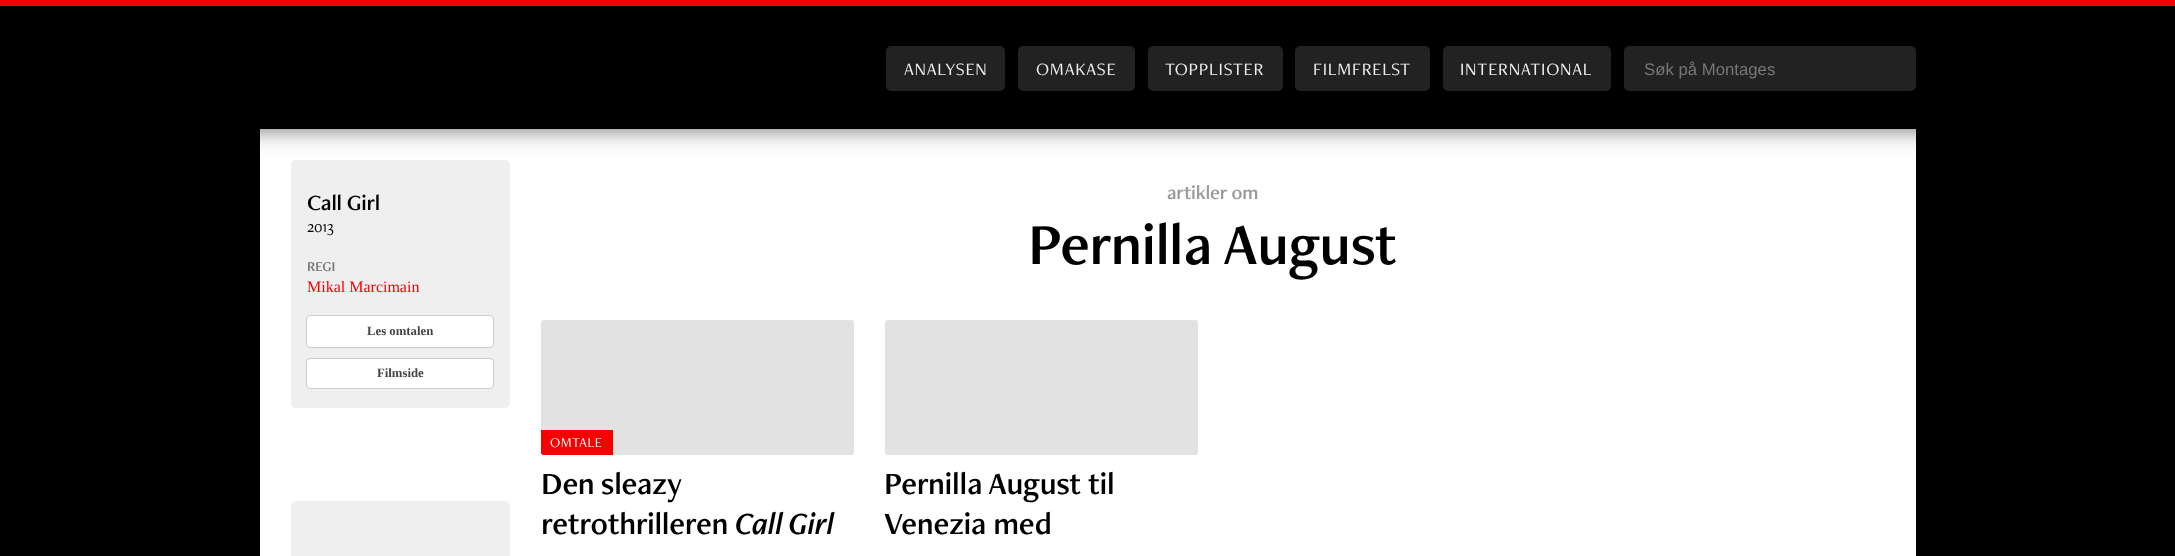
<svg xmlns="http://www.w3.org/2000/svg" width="2175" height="556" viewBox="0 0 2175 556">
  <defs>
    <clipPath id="clip1"><path d="M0 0H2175V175H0ZM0 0H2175V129H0Z" clip-rule="evenodd"/></clipPath>
    <clipPath id="clip2"><path d="M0 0H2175V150H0ZM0 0H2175V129H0Z" clip-rule="evenodd"/></clipPath>
  </defs>
  <rect width="100%" height="100%" fill="rgb(0,0,0)"/>
  <rect x="260" y="129" width="1656" height="427" fill="rgb(255,255,255)"/>
  <rect x="291" y="160" width="219" height="248" rx="5" fill="rgb(239,239,239)"/>
  <g clip-path="url(#clip1)">
    <rect x="0" y="8" width="2175" height="128" fill="rgba(0,0,0,0.19)" filter="blur(12.5px)"/>
  </g>
  <g clip-path="url(#clip2)">
    <rect x="0" y="5" width="2175" height="129" fill="rgba(0,0,0,0.2)" filter="blur(5px)"/>
  </g>
  <rect x="0" y="0" width="2175" height="6" fill="rgb(246,0,0)"/>
  <rect x="886" y="46" width="119" height="45" rx="5" fill="rgb(34,34,34)"/>
  <text x="904" y="75" font-family="'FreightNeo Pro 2'" font-size="18" letter-spacing="0.75" fill="rgb(239,239,239)">ANALYSEN</text>
  <rect x="1018" y="46" width="117" height="45" rx="5" fill="rgb(34,34,34)"/>
  <text x="1036" y="75" font-family="'FreightNeo Pro 2'" font-size="18" letter-spacing="0.75" fill="rgb(239,239,239)">OMAKASE</text>
  <rect x="1148" y="46" width="135" height="45" rx="5" fill="rgb(34,34,34)"/>
  <text x="1165" y="75" font-family="'FreightNeo Pro 2'" font-size="18" letter-spacing="0.75" fill="rgb(239,239,239)">TOPPLISTER</text>
  <rect x="1295" y="46" width="135" height="45" rx="5" fill="rgb(34,34,34)"/>
  <text x="1313" y="75" font-family="'FreightNeo Pro 2'" font-size="18" letter-spacing="0.75" fill="rgb(239,239,239)">FILMFRELST</text>
  <rect x="1443" y="46" width="168" height="45" rx="5" fill="rgb(34,34,34)"/>
  <text x="1460" y="75" font-family="'FreightNeo Pro 2'" font-size="18" letter-spacing="0.75" fill="rgb(239,239,239)">INTERNATIONAL</text>
  <rect x="1624" y="46" width="292" height="45" rx="5" fill="rgb(34,34,34)"/>
  <text x="1644" y="75" font-family="Liberation Sans" font-size="16.75" fill="rgb(119,119,119)">Søk på Montages</text>
  <text x="307" y="210" font-family="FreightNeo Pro" font-size="22.5" letter-spacing="-0.25" fill="rgb(0,0,0)">Call Girl</text>
  <text x="307" y="232" font-family="'FreightNeo Pro 2'" font-size="16" letter-spacing="-0.25" fill="rgb(0,0,0)">2013</text>
  <text x="307" y="271" font-family="FreightNeo Pro" font-size="14" fill="rgb(119,119,119)">REGI</text>
  <text x="307" y="292" font-family="Liberation Serif" font-size="16" fill="rgb(246,0,0)">Mikal Marcimain</text>
  <rect x="306.5" y="315.5" width="187" height="32" rx="3.5" fill="rgb(255,255,255)" stroke="rgb(204,204,204)"/>
  <text x="367" y="335" font-family="Liberation Serif" font-size="12.75" font-weight="bold" fill="rgb(68,68,68)">Les omtalen</text>
  <rect x="306.5" y="358.5" width="187" height="30" rx="3.5" fill="rgb(255,255,255)" stroke="rgb(204,204,204)"/>
  <text x="377" y="377" font-family="Liberation Serif" font-size="12.75" font-weight="bold" fill="rgb(68,68,68)">Filmside</text>
  <rect x="291" y="501" width="219" height="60" rx="5" fill="rgb(239,239,239)"/>
  <text x="1167" y="199" font-family="FreightNeo Pro" font-size="20" letter-spacing="-0.25" fill="rgb(153,153,153)">artikler om</text>
  <text x="1028" y="264" font-family="FreightNeo Pro" font-size="60" letter-spacing="-0.6" fill="rgb(0,0,0)">Pernilla August</text>
  <rect x="541" y="320" width="313" height="135" rx="2.5" fill="rgb(226,226,226)"/>
  <path d="M541 430H613V455H543.5C542 455 541 454 541 452.5Z" fill="rgb(246,0,0)"/>
  <text x="550" y="447" font-family="'FreightNeo Pro 2'" font-size="14" letter-spacing="0.5" fill="rgb(255,255,255)">OMTALE</text>
  <g font-family="FreightNeo Pro" font-size="32" letter-spacing="-0.3" fill="rgb(0,0,0)">
    <text>
      <tspan x="541" y="494" word-spacing="-1">Den sleazy</tspan>
      <tspan x="541" y="534">retrothrilleren</tspan>
    </text>
  </g>
  <text x="735" y="534" font-family="FreightNeo Pro" font-size="32" font-weight="600" font-style="italic" letter-spacing="-0.3" fill="rgb(0,0,0)">Call Girl</text>
  <rect x="885" y="320" width="313" height="135" rx="2.5" fill="rgb(226,226,226)"/>
  <g font-family="FreightNeo Pro" font-size="32" letter-spacing="-0.3" fill="rgb(0,0,0)">
    <text>
      <tspan x="884" y="494">Pernilla August til</tspan>
      <tspan x="884" y="534">Venezia med</tspan>
    </text>
  </g>
</svg>
